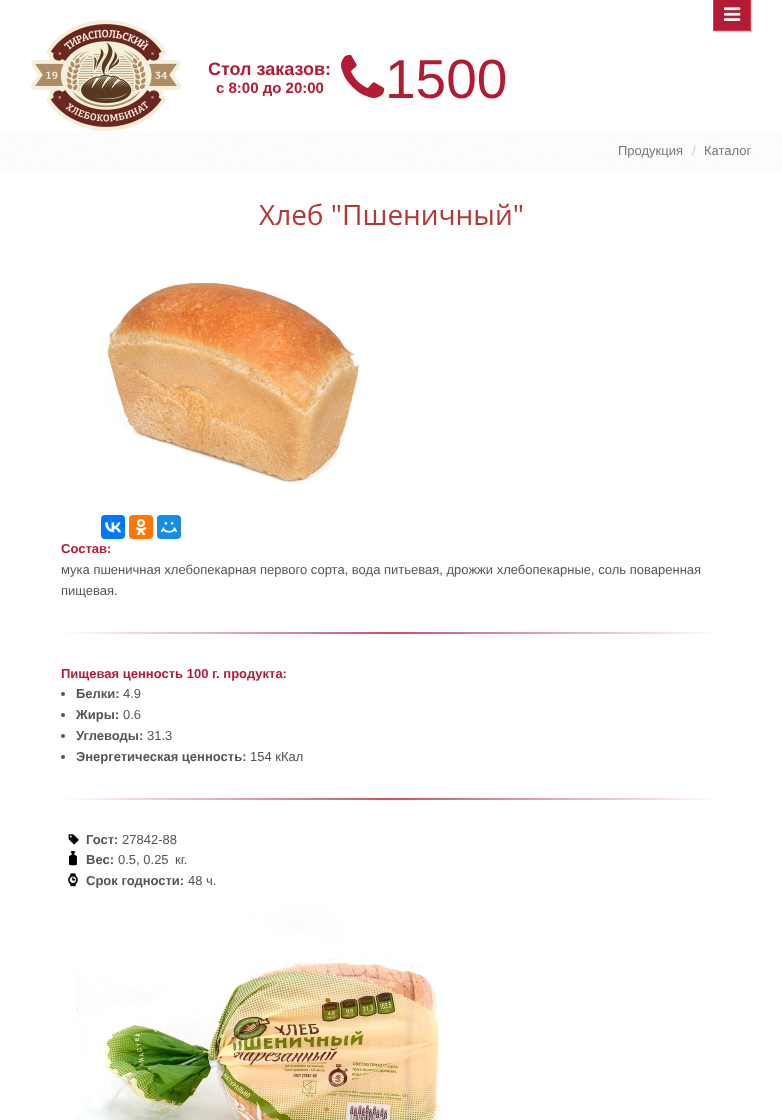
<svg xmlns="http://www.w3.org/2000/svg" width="782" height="1120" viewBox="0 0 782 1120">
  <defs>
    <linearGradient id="g1" gradientUnits="userSpaceOnUse" x1="61" y1="633" x2="721" y2="633"><stop offset="0" stop-color="rgb(255,255,255)"/><stop offset="0.5" stop-color="rgb(198,84,103)"/><stop offset="1" stop-color="rgb(255,255,255)"/></linearGradient>
    <linearGradient id="g2" gradientUnits="userSpaceOnUse" x1="61" y1="799" x2="721" y2="799"><stop offset="0" stop-color="rgb(255,255,255)"/><stop offset="0.5" stop-color="rgb(198,84,103)"/><stop offset="1" stop-color="rgb(255,255,255)"/></linearGradient>
  </defs>
  <rect width="100%" height="100%" fill="rgb(255,255,255)"/>
  <rect x="713.5" y="-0.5" width="37" height="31" fill="rgb(179,27,52)" stroke="rgb(255,38,74)"/>
  <image x="724" y="7" width="17" height="14" href="pic1.png"/>
  <image x="31" y="20" width="150" height="111" href="pic2.png"/>
  <text x="208" y="75" font-family="Liberation Sans" font-size="18" font-weight="bold" fill="rgb(179,27,52)">Стол заказов:</text>
  <text x="216" y="93" font-family="Liberation Sans" font-size="15" font-weight="bold" fill="rgb(179,27,52)">с 8:00 до 20:00</text>
  <image x="341" y="54" width="44" height="44" href="pic3.png"/>
  <text x="385" y="98" font-family="Liberation Sans" font-size="55" fill="rgb(179,27,52)">1500</text>
  <image x="0" y="131" width="782" height="41" href="pic4.png"/>
  <text x="618" y="155" font-family="Liberation Sans" font-size="13" fill="rgb(119,119,119)">Продукция</text>
  <text x="692" y="155" font-family="Liberation Sans" font-size="13" fill="rgb(204,204,204)">/</text>
  <text x="704" y="155" font-family="Liberation Sans" font-size="13" fill="rgb(119,119,119)">Каталог</text>
  <text x="259" y="225" font-family="Open Sans" font-size="28" fill="rgb(179,57,52)">Хлеб "Пшеничный"</text>
  <image x="106" y="282" width="254" height="202" href="pic5.png"/>
  <rect x="101" y="515" width="24" height="24" rx="4" fill="rgb(0,119,255)"/>
  <image x="105" y="522" width="16" height="11" href="pic6.png"/>
  <rect x="129" y="515" width="24" height="24" rx="4" fill="rgb(255,119,0)"/>
  <image x="135" y="519" width="12" height="16" href="pic7.png"/>
  <rect x="157" y="515" width="24" height="24" rx="4" fill="rgb(22,141,226)"/>
  <image x="161" y="522" width="16" height="11" href="pic8.png"/>
  <text x="61" y="553" font-family="Liberation Sans" font-size="13" font-weight="bold" fill="rgb(179,27,52)">Состав:</text>
  <g font-family="Liberation Sans" font-size="13" fill="rgb(85,85,85)">
    <text>
      <tspan x="61" y="574">мука пшеничная хлебопекарная первого сорта, вода питьевая, дрожжи хлебопекарные, соль поваренная</tspan>
      <tspan x="61" y="595">пищевая.</tspan>
    </text>
  </g>
  <rect x="61" y="632" width="660" height="2" fill="url(#g1)"/>
  <text x="61" y="678" font-family="Liberation Sans" font-size="13" font-weight="bold" fill="rgb(179,27,52)">Пищевая ценность 100 г. продукта:</text>
  <circle cx="63" cy="694" r="2" fill="rgb(85,85,85)"/>
  <text x="76" y="698" font-family="Liberation Sans" font-size="13" font-weight="bold" fill="rgb(85,85,85)">Белки:</text>
  <text x="123" y="698" font-family="Liberation Sans" font-size="13" fill="rgb(85,85,85)">4.9</text>
  <circle cx="63" cy="715" r="2" fill="rgb(85,85,85)"/>
  <text x="76" y="719" font-family="Liberation Sans" font-size="13" font-weight="bold" fill="rgb(85,85,85)">Жиры:</text>
  <text x="123" y="719" font-family="Liberation Sans" font-size="13" fill="rgb(85,85,85)">0.6</text>
  <circle cx="63" cy="736" r="2" fill="rgb(85,85,85)"/>
  <text x="76" y="740" font-family="Liberation Sans" font-size="13" font-weight="bold" fill="rgb(85,85,85)">Углеводы:</text>
  <text x="147" y="740" font-family="Liberation Sans" font-size="13" fill="rgb(85,85,85)">31.3</text>
  <circle cx="63" cy="757" r="2" fill="rgb(85,85,85)"/>
  <text x="76" y="761" font-family="Liberation Sans" font-size="13" font-weight="bold" fill="rgb(85,85,85)">Энергетическая ценность:</text>
  <text x="250" y="761" font-family="Liberation Sans" font-size="13" fill="rgb(85,85,85)">154 кКал</text>
  <rect x="61" y="798" width="660" height="2" fill="url(#g2)"/>
  <image x="68" y="834" width="11" height="11" href="pic9.png"/>
  <text x="86" y="844" font-family="Liberation Sans" font-size="13" font-weight="bold" fill="rgb(85,85,85)">Гост:</text>
  <text x="122" y="844" font-family="Liberation Sans" font-size="13" fill="rgb(85,85,85)">27842-88</text>
  <image x="69" y="851" width="8" height="15" href="pic10.png"/>
  <text x="86" y="864" font-family="Liberation Sans" font-size="13" font-weight="bold" fill="rgb(85,85,85)">Вес:</text>
  <g font-family="Liberation Sans" font-size="13" fill="rgb(85,85,85)">
    <text x="118" y="864">0.5, 0.25</text>
    <text x="175" y="864">кг.</text>
  </g>
  <image x="68" y="873" width="10" height="14" href="pic11.png"/>
  <text x="86" y="885" font-family="Liberation Sans" font-size="13" font-weight="bold" fill="rgb(85,85,85)">Срок годности:</text>
  <text x="188" y="885" font-family="Liberation Sans" font-size="13" fill="rgb(85,85,85)">48 ч.</text>
  <image x="76" y="903" width="379" height="217" href="pic12.png"/>
</svg>
